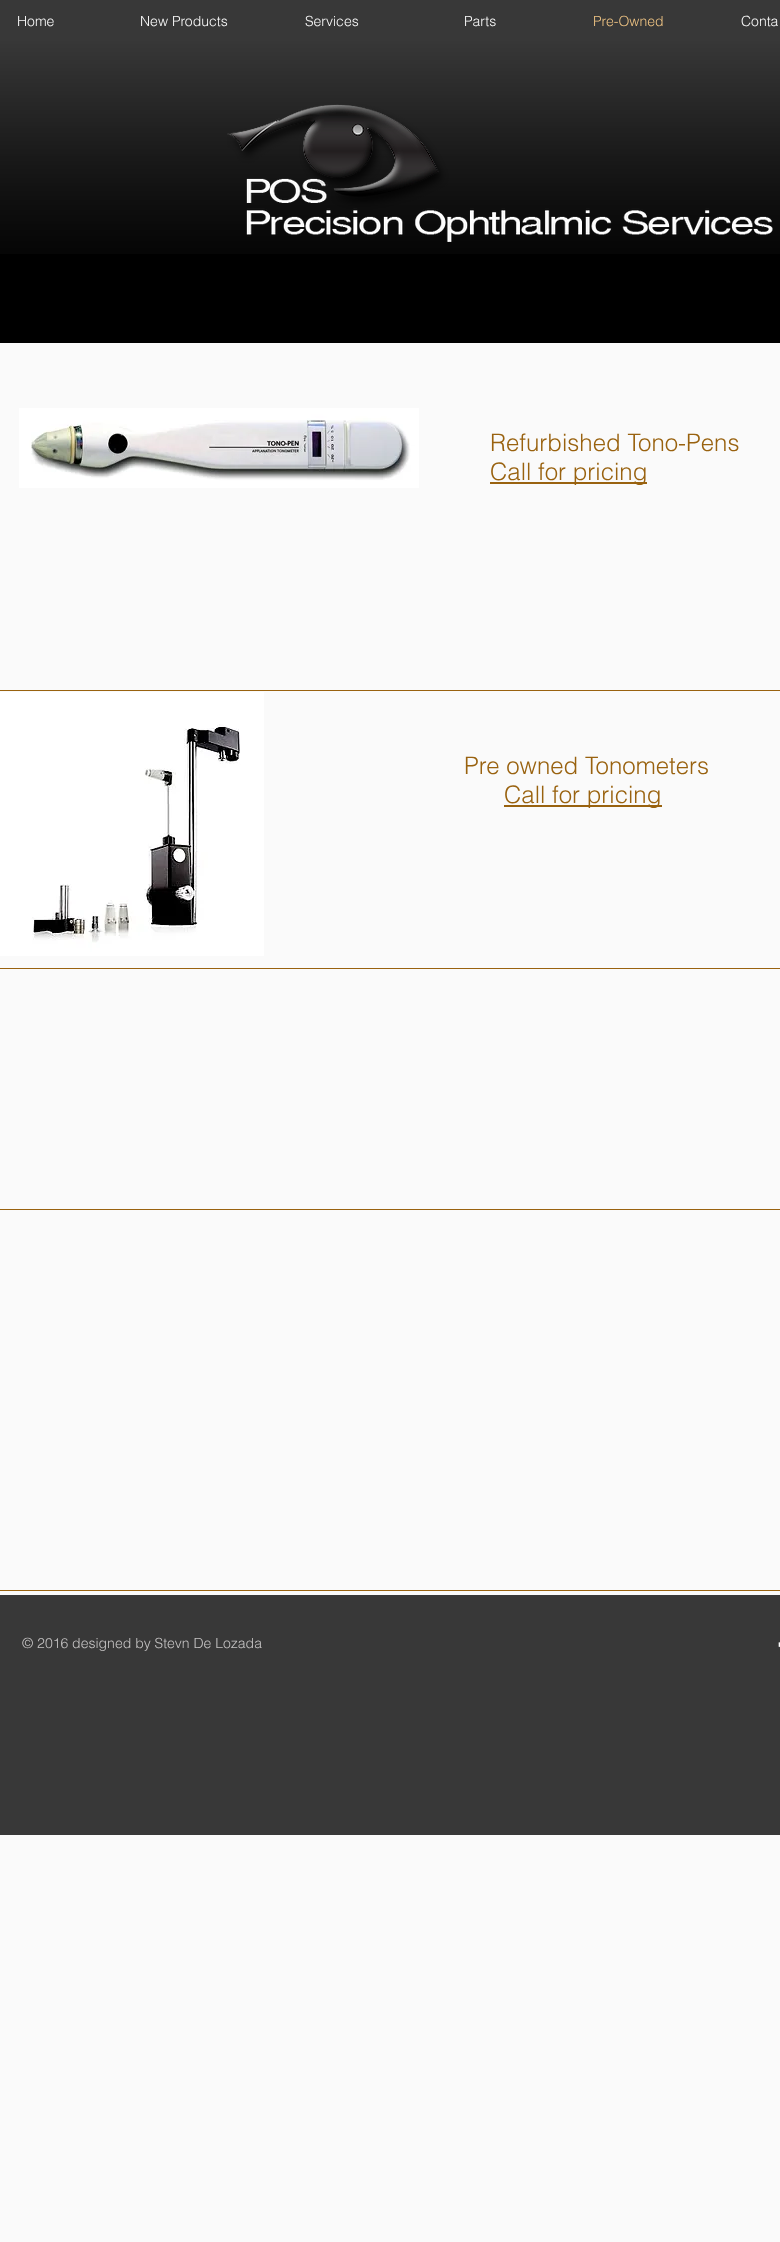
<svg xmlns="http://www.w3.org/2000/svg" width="780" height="2242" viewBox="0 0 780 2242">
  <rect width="100%" height="100%" fill="rgb(250,250,250)"/>
  <rect x="0" y="0" width="780" height="41" fill="rgb(56,56,56)"/>
  <g font-family="helvetica" font-size="14" font-weight="300" fill="rgb(250,250,250)">
    <text x="17" y="26">Home</text>
    <text x="140" y="26">New Products</text>
    <text x="305" y="26">Services</text>
    <text x="464" y="26">Parts</text>
  </g>
  <text x="593" y="26" font-family="helvetica" font-size="14" font-weight="300" fill="rgb(238,195,131)">Pre-Owned</text>
  <text x="741" y="26" font-family="helvetica" font-size="14" font-weight="300" fill="rgb(250,250,250)">Conta</text>
  <rect x="0" y="41" width="780" height="302" fill="rgb(0,0,0)"/>
  <image x="0" y="41" width="780" height="213" href="pic2.png"/>
  <image x="227" y="104" width="546" height="138" href="pic1.png"/>
  <image x="19" y="408" width="400" height="80" href="pic3.png"/>
  <text x="490" y="451" font-family="helvetica" font-size="24" font-weight="300" fill="rgb(153,98,15)">Refurbished Tono-Pens</text>
  <rect x="490" y="482" width="157" height="2" fill="rgb(153,98,15)"/>
  <text x="490" y="480" font-family="helvetica" font-size="24" font-weight="300" fill="rgb(153,98,15)">Call for pricing</text>
  <rect x="0" y="690" width="780" height="1" fill="rgb(153,98,15)"/>
  <image x="0" y="692" width="264" height="264" href="pic4.png"/>
  <text x="464" y="774" font-family="helvetica" font-size="24" font-weight="300" fill="rgb(153,98,15)">Pre owned Tonometers</text>
  <rect x="504" y="805" width="158" height="2" fill="rgb(153,98,15)"/>
  <text x="504" y="803" font-family="helvetica" font-size="24" font-weight="300" fill="rgb(153,98,15)">Call for pricing</text>
  <rect x="0" y="968" width="780" height="1" fill="rgb(153,98,15)"/>
  <rect x="0" y="1209" width="780" height="1" fill="rgb(153,98,15)"/>
  <rect x="0" y="1590" width="780" height="1" fill="rgb(153,98,15)"/>
  <rect x="0" y="1595" width="780" height="240" fill="rgb(56,56,56)"/>
  <text x="22" y="1648" font-family="helvetica" font-size="14" font-weight="300" fill="rgb(197,195,195)">© 2016 designed by Stevn De Lozada</text>
  <image x="778" y="1642" width="2" height="6" href="pic5.png"/>
</svg>
